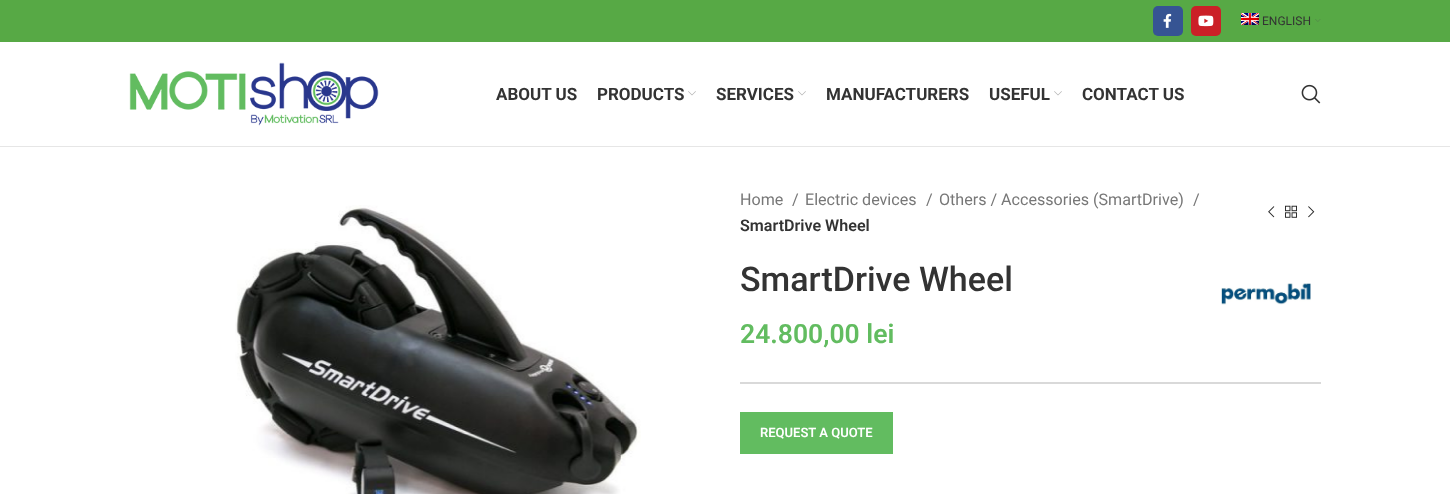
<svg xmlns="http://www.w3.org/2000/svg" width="1450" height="494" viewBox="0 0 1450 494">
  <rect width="100%" height="100%" fill="rgb(255,255,255)"/>
  <rect x="0" y="0" width="1450" height="42" fill="rgb(87,169,69)"/>
  <rect x="1153" y="6" width="30" height="30" rx="5" fill="rgb(54,84,147)"/>
  <image x="1163" y="13" width="9" height="15" href="pic1.png"/>
  <rect x="1191" y="6" width="30" height="30" rx="5" fill="rgb(203,32,39)"/>
  <image x="1198" y="15" width="16" height="12" href="pic2.png"/>
  <image x="1241" y="13" width="18" height="12" href="pic3.png"/>
  <text x="1262" y="25" font-family="Roboto" font-size="12" fill="rgb(51,51,51)">ENGLISH</text>
  <image x="1315" y="19" width="6" height="3" href="pic4.png"/>
  <rect x="0" y="146" width="1450" height="1" fill="rgb(230,230,230)"/>
  <image x="129" y="62" width="250" height="64" href="pic5.png"/>
  <g font-family="Roboto" font-size="17" font-weight="bold" fill="rgb(51,51,51)">
    <text x="496" y="100">ABOUT US</text>
    <text x="597" y="100">PRODUCTS</text>
  </g>
  <image x="688" y="91" width="8" height="5" href="pic6.png"/>
  <text x="716" y="100" font-family="Roboto" font-size="17" font-weight="bold" fill="rgb(51,51,51)">SERVICES</text>
  <image x="798" y="91" width="8" height="5" href="pic6.png"/>
  <g font-family="Roboto" font-size="17" font-weight="bold" fill="rgb(51,51,51)">
    <text x="826" y="100">MANUFACTURERS</text>
    <text x="989" y="100">USEFUL</text>
  </g>
  <image x="1054" y="91" width="8" height="5" href="pic6.png"/>
  <text x="1082" y="100" font-family="Roboto" font-size="17" font-weight="bold" fill="rgb(51,51,51)">CONTACT US</text>
  <image x="1301" y="84" width="20" height="20" href="pic7.png"/>
  <image x="235" y="205" width="406" height="289" href="pic8.png"/>
  <g font-family="Roboto" font-size="16.1" fill="rgb(119,119,119)">
    <text x="740" y="205">Home</text>
    <text x="792" y="205">/</text>
    <text x="805" y="205">Electric devices</text>
    <text x="926" y="205">/</text>
    <text x="939" y="205">Others / Accessories (SmartDrive)</text>
    <text x="1193" y="205">/</text>
  </g>
  <text x="740" y="231" font-family="Roboto" font-size="16.1" font-weight="600" fill="rgb(51,51,51)">SmartDrive Wheel</text>
  <image x="1268" y="206" width="7" height="12" href="pic9.png"/>
  <image x="1285" y="205" width="12" height="13" href="pic10.png"/>
  <image x="1308" y="206" width="7" height="12" href="pic11.png"/>
  <text x="740" y="291" font-family="Roboto" font-size="34" font-weight="500" fill="rgb(51,51,51)">SmartDrive Wheel</text>
  <image x="1221" y="283" width="90" height="22" href="pic12.png"/>
  <text x="740" y="343" font-family="Roboto" font-size="26.5" font-weight="600" fill="rgb(98,188,96)">24.800,00 lei</text>
  <rect x="740" y="382" width="581" height="2" fill="rgb(217,217,217)"/>
  <rect x="740" y="412" width="153" height="42" fill="rgb(98,188,96)"/>
  <text x="760" y="437" font-family="Roboto" font-size="13" font-weight="600" fill="rgb(255,255,255)">REQUEST A QUOTE</text>
</svg>
